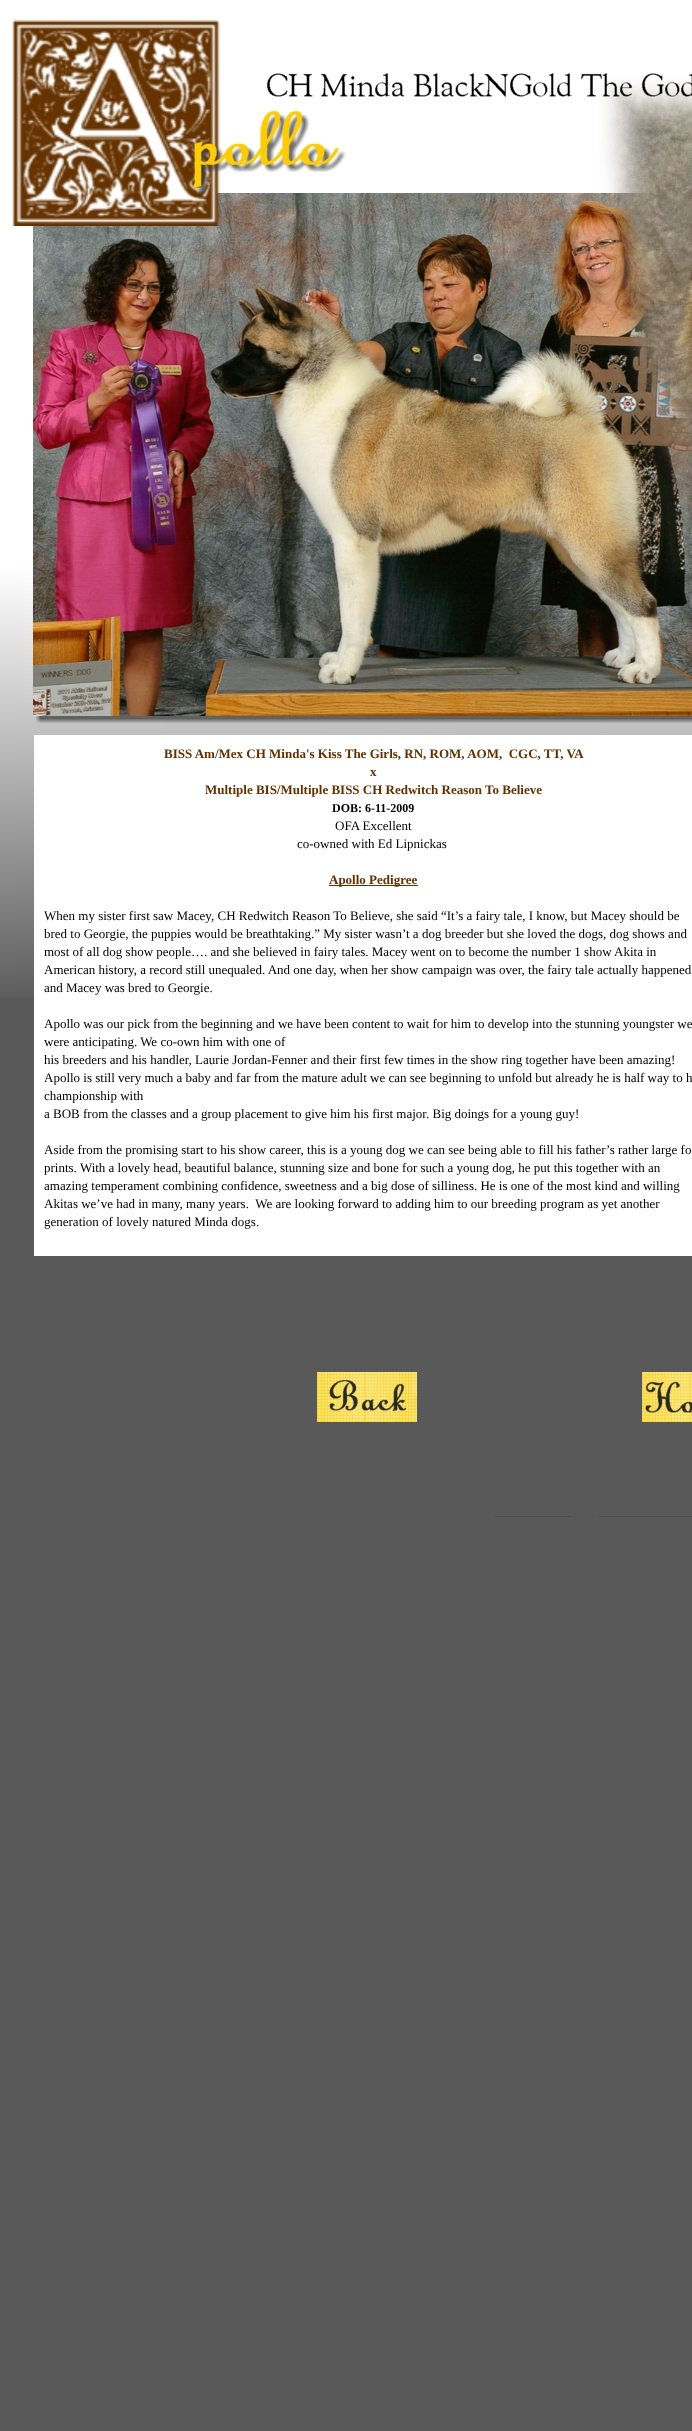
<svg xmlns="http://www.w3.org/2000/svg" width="692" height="2431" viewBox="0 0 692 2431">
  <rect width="100%" height="100%" fill="rgb(89,89,89)"/>
  <image x="0" y="0" width="692" height="997" href="pic1.png"/>
  <rect x="34" y="735" width="658" height="521" fill="rgb(255,255,255)"/>
  <g font-family="Liberation Serif" font-size="13" font-weight="bold" fill="rgb(99,49,0)">
    <text x="164" y="758" xml:space="preserve">BISS Am/Mex CH Minda's Kiss The Girls, RN, ROM, AOM,  CGC, TT, VA</text>
    <text x="370" y="776">x</text>
    <text x="205" y="794">Multiple BIS/Multiple BISS CH Redwitch Reason To Believe</text>
  </g>
  <text x="332" y="812" font-family="Liberation Serif" font-size="12" font-weight="bold" fill="rgb(0,0,0)">DOB: 6-11-2009</text>
  <g font-family="Liberation Serif" font-size="13" fill="rgb(0,0,0)">
    <text x="335" y="830">OFA Excellent</text>
    <text x="297" y="848">co-owned with Ed Lipnickas</text>
  </g>
  <rect x="329" y="885" width="89" height="1" fill="rgb(99,49,0)"/>
  <text x="329" y="884" font-family="Liberation Serif" font-size="13" font-weight="bold" fill="rgb(99,49,0)">Apollo Pedigree</text>
  <g font-family="Liberation Serif" font-size="13" fill="rgb(0,0,0)">
    <text>
      <tspan x="44" y="920">When my sister first saw Macey, CH Redwitch Reason To Believe, she said “It’s a fairy tale, I know, but Macey should be</tspan>
      <tspan x="44" y="938">bred to Georgie, the puppies would be breathtaking.” My sister wasn’t a dog breeder but she loved the dogs, dog shows and</tspan>
      <tspan x="44" y="956">most of all dog show people…. and she believed in fairy tales. Macey went on to become the number 1 show Akita in</tspan>
      <tspan x="44" y="974">American history, a record still unequaled. And one day, when her show campaign was over, the fairy tale actually happened</tspan>
      <tspan x="44" y="992">and Macey was bred to Georgie.</tspan>
    </text>
    <text>
      <tspan x="44" y="1028">Apollo was our pick from the beginning and we have been content to wait for him to develop into the stunning youngster we</tspan>
      <tspan x="44" y="1046">were anticipating. We co-own him with one of</tspan>
      <tspan x="44" y="1064">his breeders and his handler, Laurie Jordan-Fenner and their first few times in the show ring together have been amazing!</tspan>
      <tspan x="44" y="1082">Apollo is still very much a baby and far from the mature adult we can see beginning to unfold but already he is half way to h</tspan>
      <tspan x="44" y="1100">championship with</tspan>
      <tspan x="44" y="1118">a BOB from the classes and a group placement to give him his first major. Big doings for a young guy!</tspan>
    </text>
    <text xml:space="preserve"><tspan x="44" y="1154">Aside from the promising start to his show career, this is a young dog we can see being able to fill his father’s rather large fo</tspan><tspan x="44" y="1172">prints. With a lovely head, beautiful balance, stunning size and bone for such a young dog, he put this together with an</tspan><tspan x="44" y="1190">amazing temperament combining confidence, sweetness and a big dose of silliness. He is one of the most kind and willing</tspan><tspan x="44" y="1208">Akitas we’ve had in many, many years.  We are looking forward to adding him to our breeding program as yet another</tspan><tspan x="44" y="1226">generation of lovely natured Minda dogs.</tspan></text>
  </g>
  <image x="317" y="1372" width="100" height="50" href="pic2.png"/>
  <image x="642" y="1372" width="50" height="50" href="pic3.png"/>
  <rect x="495" y="1516" width="76" height="1" fill="rgb(80,80,80)"/>
  <rect x="598" y="1516" width="94" height="1" fill="rgb(80,80,80)"/>
</svg>
